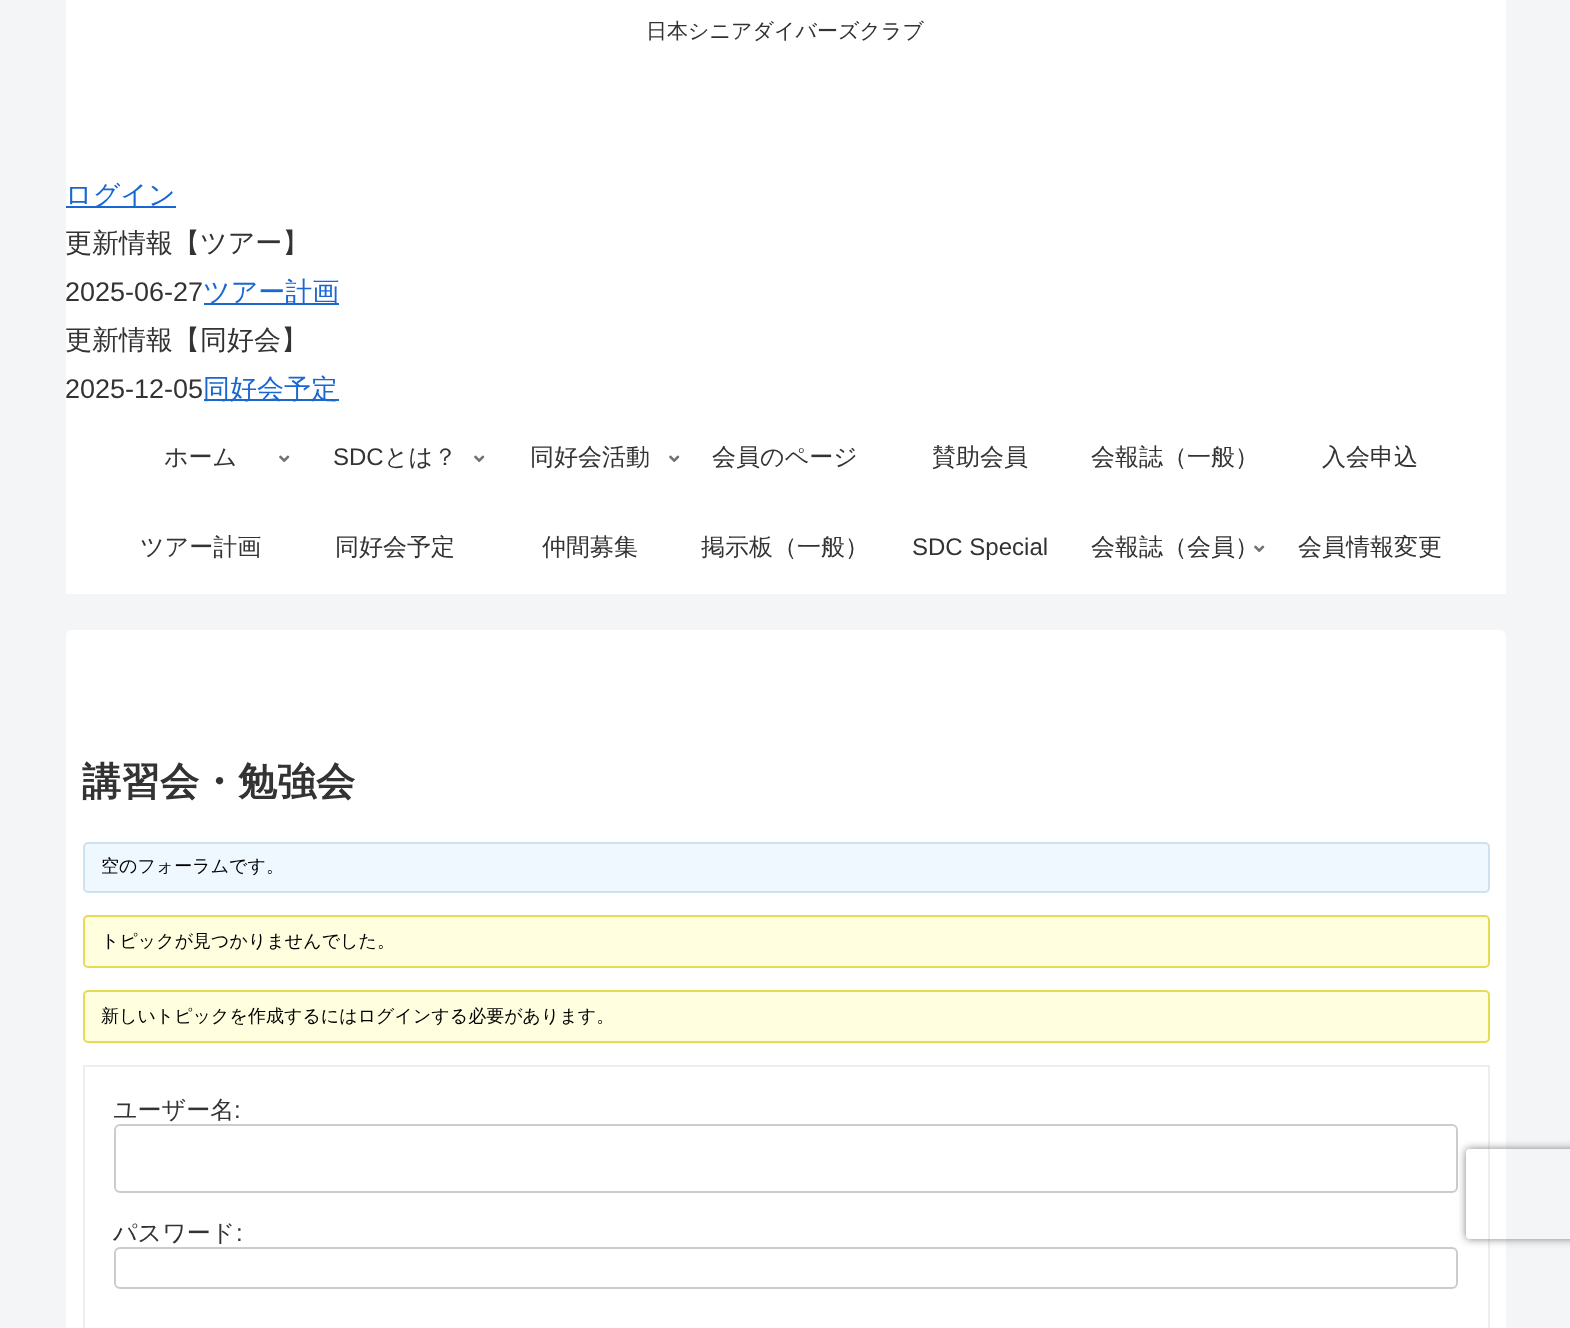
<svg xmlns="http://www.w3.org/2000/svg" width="1570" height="1328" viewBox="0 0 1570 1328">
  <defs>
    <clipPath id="clip1"><path d="M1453 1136H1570V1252H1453ZM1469 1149H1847C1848.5 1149 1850 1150.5 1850 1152V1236C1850 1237.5 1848.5 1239 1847 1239H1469C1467.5 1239 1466 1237.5 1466 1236V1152C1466 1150.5 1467.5 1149 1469 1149Z" clip-rule="evenodd"/></clipPath>
  </defs>
  <rect width="100%" height="100%" fill="rgb(244,245,247)"/>
  <rect x="66" y="0" width="1440" height="594" fill="rgb(255,255,255)"/>
  <text x="646" y="38" font-family="WenQuanYi Zen Hei" font-size="21" font-weight="500" fill="rgb(51,51,51)">日本シニアダイバーズクラブ</text>
  <rect x="66" y="206" width="110" height="2" fill="rgb(25,103,210)"/>
  <text x="65" y="204" font-family="WenQuanYi Zen Hei" font-size="27" font-weight="500" fill="rgb(25,103,210)">ログイン</text>
  <text x="65" y="252" font-family="WenQuanYi Zen Hei" font-size="27" font-weight="500" fill="rgb(51,51,51)">更新情報【ツアー】</text>
  <text x="65" y="301" font-family="Liberation Sans" font-size="27" fill="rgb(51,51,51)">2025-06-27</text>
  <rect x="204" y="303" width="135" height="2" fill="rgb(25,103,210)"/>
  <text x="203" y="301" font-family="WenQuanYi Zen Hei" font-size="27" font-weight="500" fill="rgb(25,103,210)">ツアー計画</text>
  <text x="65" y="349" font-family="WenQuanYi Zen Hei" font-size="27" font-weight="500" fill="rgb(51,51,51)">更新情報【同好会】</text>
  <text x="65" y="398" font-family="Liberation Sans" font-size="27" fill="rgb(51,51,51)">2025-12-05</text>
  <rect x="204" y="399" width="135" height="2" fill="rgb(25,103,210)"/>
  <text x="203" y="398" font-family="WenQuanYi Zen Hei" font-size="27" font-weight="500" fill="rgb(25,103,210)">同好会予定</text>
  <text x="164" y="465" font-family="WenQuanYi Zen Hei" font-size="24" font-weight="500" fill="rgb(51,51,51)">ホーム</text>
  <image x="279" y="455" width="11" height="8" href="pic1.png"/>
  <text x="333" y="465" font-family="Liberation Sans" font-size="24" fill="rgb(51,51,51)">SDC</text>
  <text x="384" y="465" font-family="WenQuanYi Zen Hei" font-size="24" font-weight="500" fill="rgb(51,51,51)">とは？</text>
  <image x="474" y="455" width="11" height="8" href="pic1.png"/>
  <text x="530" y="465" font-family="WenQuanYi Zen Hei" font-size="24" font-weight="500" fill="rgb(51,51,51)">同好会活動</text>
  <image x="669" y="455" width="11" height="8" href="pic1.png"/>
  <g font-family="WenQuanYi Zen Hei" font-size="24" font-weight="500" fill="rgb(51,51,51)">
    <text x="712" y="465">会員のページ</text>
    <text x="932" y="465">賛助会員</text>
    <text x="1091" y="465">会報誌（一般）</text>
    <text x="1322" y="465">入会申込</text>
    <text x="140" y="555">ツアー計画</text>
    <text x="335" y="555">同好会予定</text>
    <text x="542" y="555">仲間募集</text>
    <text x="701" y="555">掲示板（一般）</text>
  </g>
  <text x="912" y="555" font-family="Liberation Sans" font-size="24" fill="rgb(51,51,51)">SDC Special</text>
  <text x="1091" y="555" font-family="WenQuanYi Zen Hei" font-size="24" font-weight="500" fill="rgb(51,51,51)">会報誌（会員）</text>
  <image x="1254" y="545" width="11" height="8" href="pic1.png"/>
  <text x="1298" y="555" font-family="WenQuanYi Zen Hei" font-size="24" font-weight="500" fill="rgb(51,51,51)">会員情報変更</text>
  <rect x="66" y="630" width="1440" height="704" rx="6" fill="rgb(255,255,255)"/>
  <text x="82" y="795" font-family="WenQuanYi Zen Hei" font-size="39" font-weight="bold" fill="rgb(51,51,51)">講習会・勉強会</text>
  <rect x="84" y="843" width="1405" height="49" rx="4" fill="rgb(240,248,255)" stroke="rgb(206,225,239)" stroke-width="2"/>
  <text x="101" y="872" font-family="WenQuanYi Zen Hei" font-size="18" font-weight="500" fill="rgb(0,0,0)">空のフォーラムです。</text>
  <rect x="84" y="916" width="1405" height="51" rx="4" fill="rgb(255,255,224)" stroke="rgb(230,219,85)" stroke-width="2"/>
  <text x="101" y="947" font-family="WenQuanYi Zen Hei" font-size="18" font-weight="500" fill="rgb(0,0,0)">トピックが見つかりませんでした。</text>
  <rect x="84" y="991" width="1405" height="51" rx="4" fill="rgb(255,255,224)" stroke="rgb(230,219,85)" stroke-width="2"/>
  <text x="101" y="1022" font-family="WenQuanYi Zen Hei" font-size="18" font-weight="500" fill="rgb(0,0,0)">新しいトピックを作成するにはログインする必要があります。</text>
  <rect x="84" y="1066" width="1405" height="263" fill="none" stroke="rgb(238,238,238)" stroke-width="2"/>
  <text x="113" y="1118" font-family="WenQuanYi Zen Hei" font-size="24" font-weight="500" fill="rgb(51,51,51)">ユーザー名</text>
  <text x="234" y="1118" font-family="Liberation Sans" font-size="24" fill="rgb(51,51,51)">:</text>
  <rect x="115" y="1125" width="1342" height="67" rx="5" fill="none" stroke="rgb(204,204,204)" stroke-width="2"/>
  <text x="113" y="1241" font-family="WenQuanYi Zen Hei" font-size="24" font-weight="500" fill="rgb(51,51,51)">パスワード</text>
  <text x="236" y="1241" font-family="Liberation Sans" font-size="24" fill="rgb(51,51,51)">:</text>
  <rect x="115" y="1248" width="1342" height="40" rx="5" fill="none" stroke="rgb(204,204,204)" stroke-width="2"/>
  <g clip-path="url(#clip1)">
    <rect x="1466" y="1149" width="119" height="90" rx="3" fill="rgb(128,128,128)" filter="blur(4px)"/>
  </g>
</svg>
